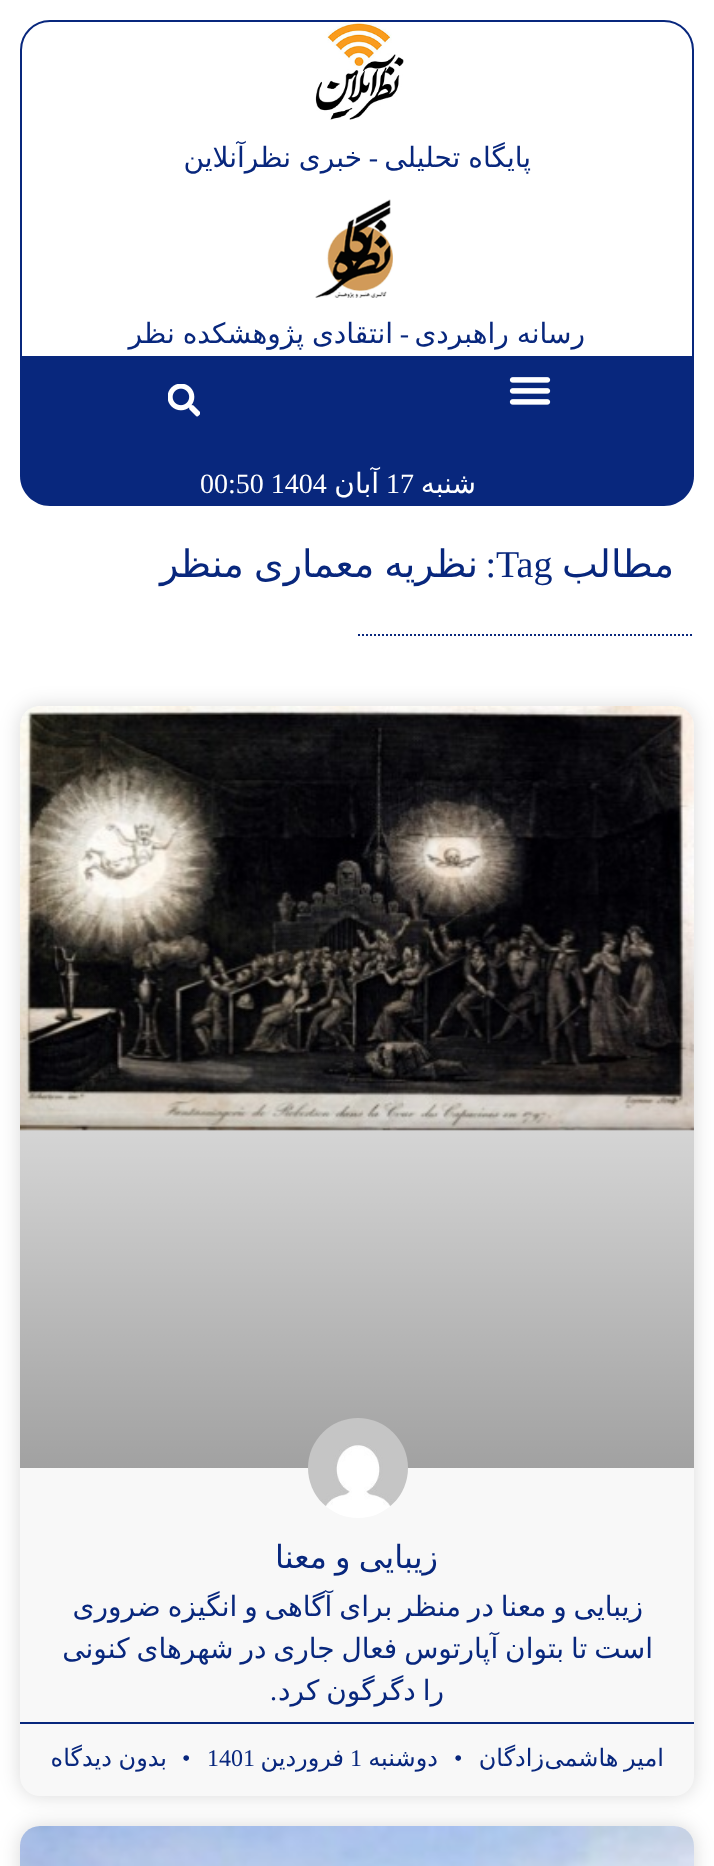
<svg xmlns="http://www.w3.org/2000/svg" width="714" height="1866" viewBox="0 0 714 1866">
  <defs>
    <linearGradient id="g1" gradientUnits="userSpaceOnUse" x1="357" y1="1468" x2="357" y2="706"><stop offset="0" stop-color="rgb(0,0,0)" stop-opacity="0.35"/><stop offset="0.75" stop-color="rgb(0,0,0)" stop-opacity="0"/></linearGradient>
  </defs>
  <rect width="100%" height="100%" fill="rgb(255,255,255)"/>
  <path d="M50 21H664C680 21 693 34 693 50V357H21V50C21 34 34 21 50 21Z" fill="none" stroke="rgb(8,39,125)" stroke-width="2"/>
  <image x="315" y="23" width="89" height="97" href="pic1.png"/>
  <text x="531" y="167" word-spacing="-1" font-family="DejaVu Sans" font-size="28" direction="rtl" fill="rgb(8,39,125)">پایگاه تحلیلی</text>
  <text x="378" y="167" font-family="Liberation Serif" font-size="28" direction="rtl" fill="rgb(8,39,125)">-</text>
  <text x="362" y="167" word-spacing="-1" font-family="DejaVu Sans" font-size="28" direction="rtl" fill="rgb(8,39,125)">خبری نظرآنلاین</text>
  <image x="315" y="199" width="78" height="99" href="pic2.png"/>
  <text x="585" y="343" word-spacing="-1" font-family="DejaVu Sans" font-size="28" direction="rtl" fill="rgb(8,39,125)">رسانه راهبردی</text>
  <text x="409" y="343" font-family="Liberation Serif" font-size="28" direction="rtl" fill="rgb(8,39,125)">-</text>
  <text x="393" y="343" word-spacing="-1" font-family="DejaVu Sans" font-size="28" direction="rtl" fill="rgb(8,39,125)">انتقادی پژوهشکده نظر</text>
  <path d="M20 358H694V476C694 492.5 680.5 506 664 506H50C33.5 506 20 492.5 20 476Z" fill="rgb(8,39,125)"/>
  <image x="509" y="377" width="42" height="28" href="pic3.png"/>
  <image x="168" y="384" width="32" height="33" href="pic4.png"/>
  <text x="476" y="493" font-family="DejaVu Sans" font-size="28" direction="rtl" fill="rgb(255,255,255)">شنبه</text>
  <text x="386" y="493" font-family="Liberation Serif" font-size="28" fill="rgb(255,255,255)">17</text>
  <text x="379" y="493" font-family="DejaVu Sans" font-size="28" direction="rtl" fill="rgb(255,255,255)">آبان</text>
  <text x="200" y="493" font-family="Liberation Serif" font-size="28" fill="rgb(255,255,255)">00:50 1404</text>
  <text x="674" y="577" font-family="DejaVu Sans" font-size="38" direction="rtl" fill="rgb(8,39,125)">مطالب</text>
  <text x="496" y="577" font-family="Liberation Serif" font-size="38" fill="rgb(8,39,125)">Tag</text>
  <text x="496" y="577" font-family="Liberation Serif" font-size="38" direction="rtl" fill="rgb(8,39,125)">:</text>
  <text x="478" y="577" word-spacing="-2" font-family="DejaVu Sans" font-size="38" direction="rtl" fill="rgb(8,39,125)">نظریه معماری منظر</text>
  <path d="M358 635H694" fill="none" stroke="rgb(8,39,125)" stroke-width="2" stroke-dasharray="2 2"/>
  <rect x="20" y="706" width="674" height="1090" rx="20" fill="rgba(0,0,0,0.15)" filter="blur(10px)"/>
  <rect x="20" y="706" width="674" height="1090" rx="20" fill="rgb(248,248,248)"/>
  <image x="20" y="706" width="674" height="425" href="pic5.png"/>
  <rect x="20" y="932" width="674" height="536" fill="url(#g1)"/>
  <image x="308" y="1418" width="100" height="100" href="pic6.png"/>
  <text x="438" y="1568" word-spacing="-2" font-family="DejaVu Sans" font-size="32" direction="rtl" fill="rgb(8,39,125)">زیبایی و معنا</text>
  <g font-family="DejaVu Sans" font-size="28" direction="rtl" fill="rgb(8,39,125)">
    <text x="643" y="1616" word-spacing="-2">زیبایی و معنا در منظر برای آگاهی و انگیزه ضروری</text>
    <text x="653" y="1658" word-spacing="-2">است تا بتوان آپارتوس فعال جاری در شهرهای کنونی</text>
    <text x="444" y="1700" word-spacing="-2">را دگرگون کرد</text>
  </g>
  <text x="277" y="1700" font-family="Liberation Serif" font-size="28" direction="rtl" fill="rgb(8,39,125)">.</text>
  <rect x="20" y="1722" width="674" height="2" fill="rgb(8,39,125)"/>
  <g font-family="DejaVu Sans" font-size="24" direction="rtl" fill="rgb(8,39,125)">
    <text x="664" y="1766" word-spacing="-2">امیر هاشمی</text>
    <text x="544" y="1766">زادگان</text>
  </g>
  <text x="454" y="1766" font-family="Liberation Serif" font-size="24" fill="rgb(8,39,125)">•</text>
  <text x="438" y="1766" font-family="DejaVu Sans" font-size="24" direction="rtl" fill="rgb(8,39,125)">دوشنبه</text>
  <text x="350" y="1766" font-family="Liberation Serif" font-size="24" fill="rgb(8,39,125)">1</text>
  <text x="344" y="1766" font-family="DejaVu Sans" font-size="24" direction="rtl" fill="rgb(8,39,125)">فروردین</text>
  <g font-family="Liberation Serif" font-size="24" fill="rgb(8,39,125)">
    <text x="207" y="1766">1401</text>
    <text x="182" y="1766">•</text>
  </g>
  <text x="167" y="1766" word-spacing="-1" font-family="DejaVu Sans" font-size="24" direction="rtl" fill="rgb(8,39,125)">بدون دیدگاه</text>
  <rect x="20" y="1826" width="674" height="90" rx="20" fill="rgba(0,0,0,0.15)" filter="blur(10px)"/>
  <rect x="20" y="1826" width="674" height="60" rx="20" fill="rgb(248,248,248)"/>
  <image x="20" y="1826" width="674" height="40" href="pic7.png"/>
</svg>
